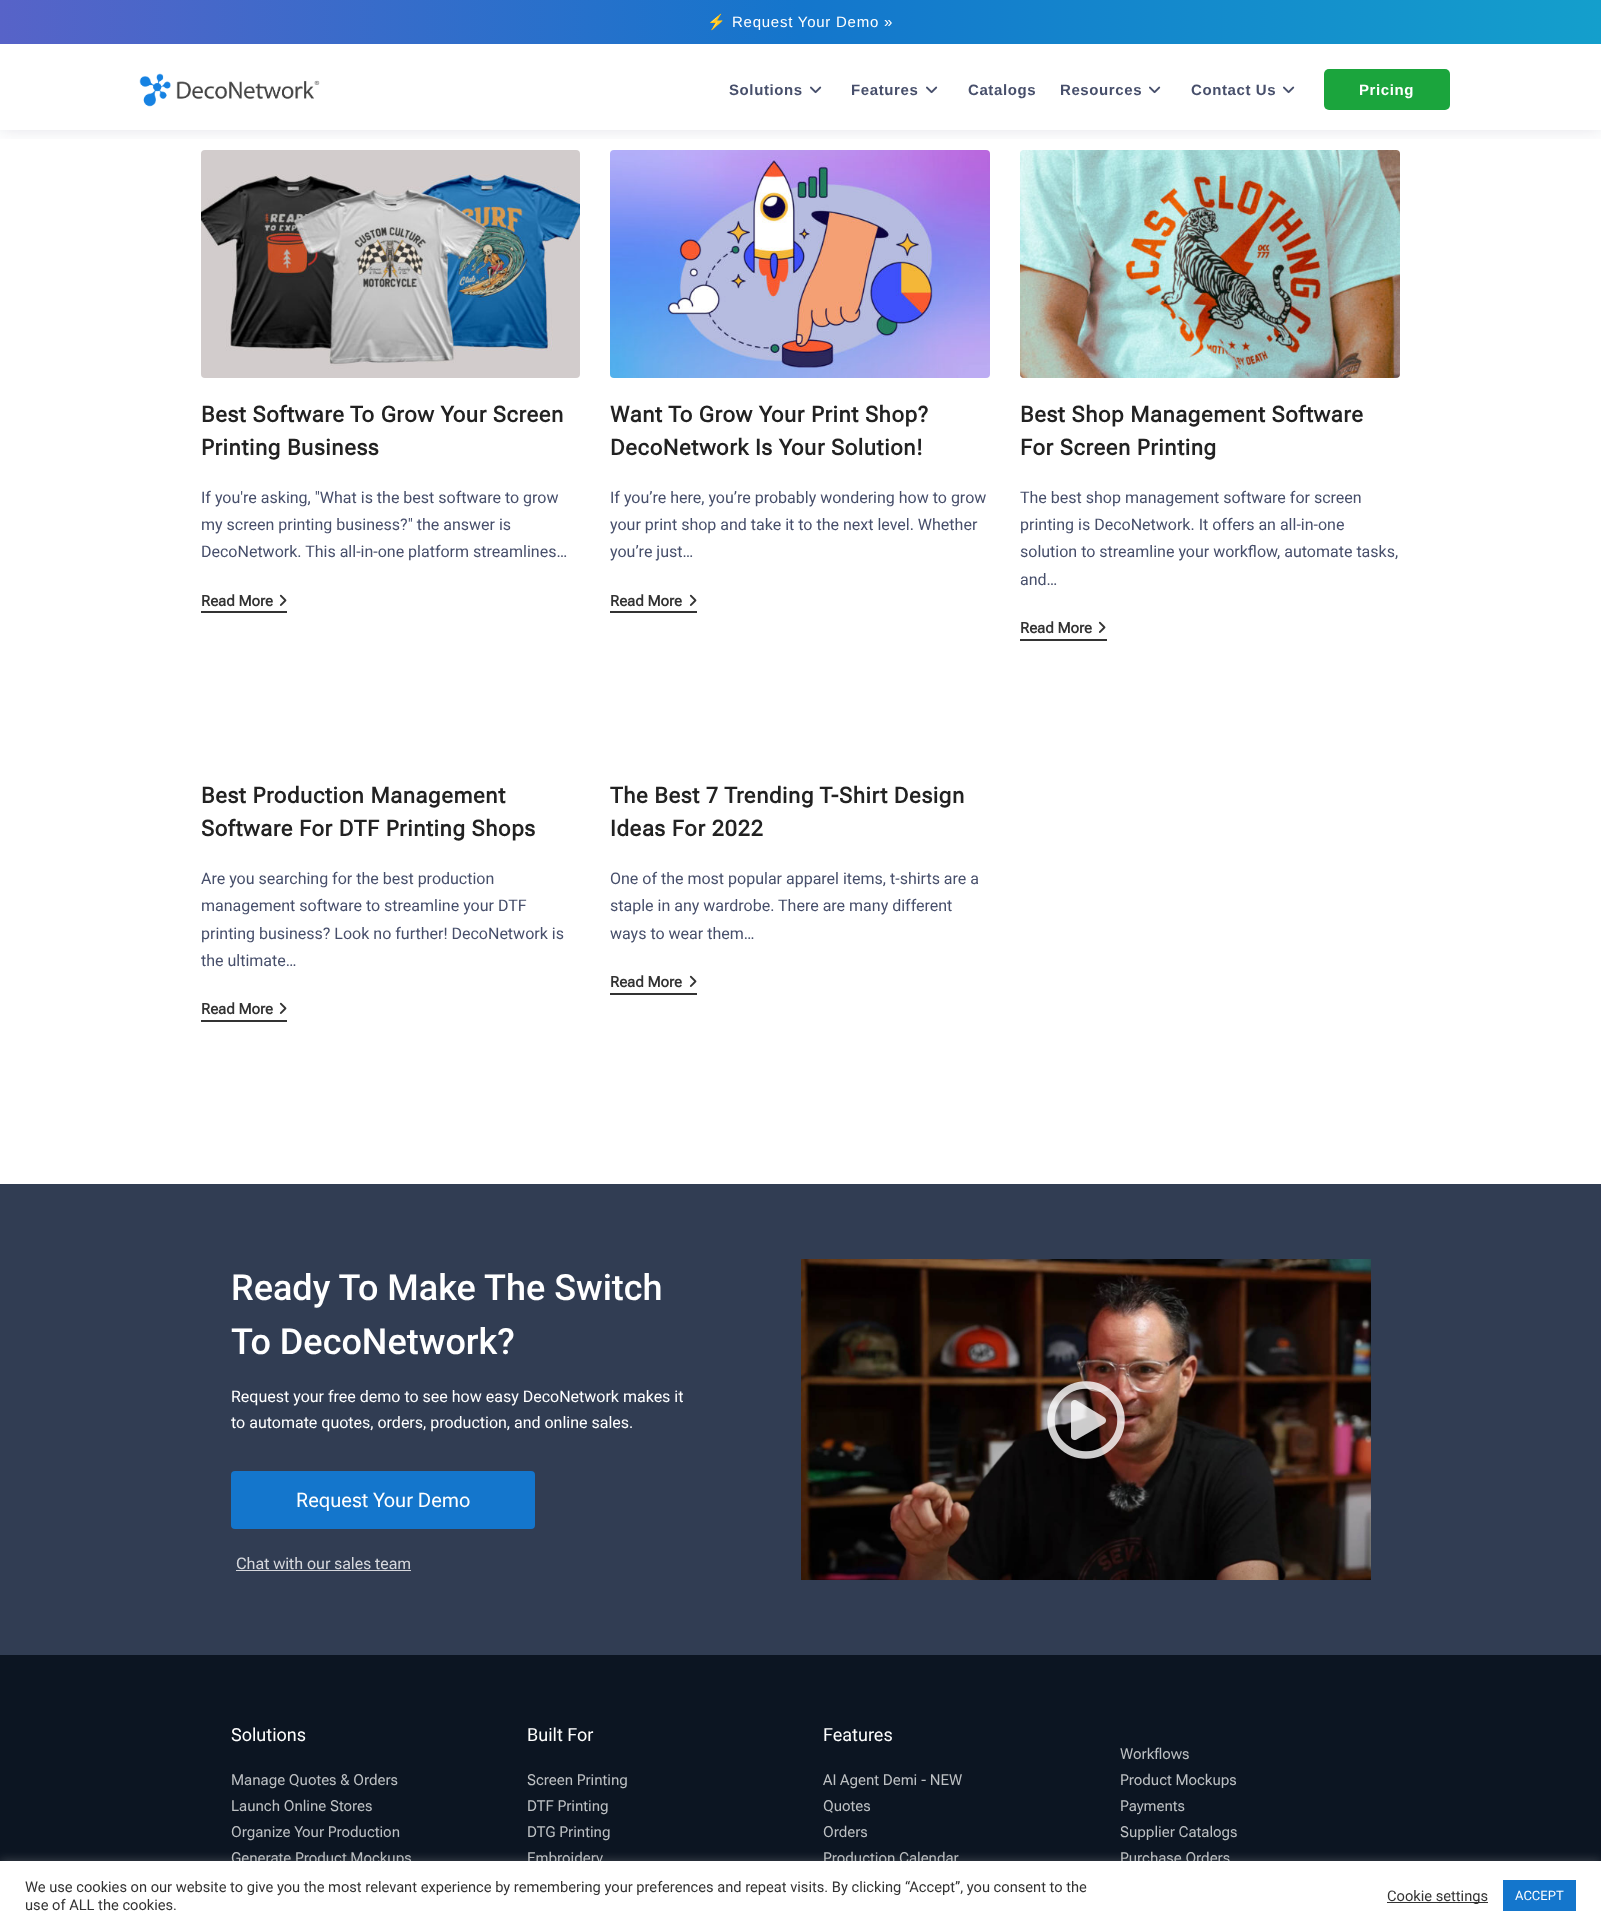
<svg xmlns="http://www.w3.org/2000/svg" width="1601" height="1930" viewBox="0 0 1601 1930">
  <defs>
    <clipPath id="clip1"><rect x="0" y="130" width="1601" height="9"/></clipPath>
    <linearGradient id="g1" gradientUnits="userSpaceOnUse" x1="0" y1="22" x2="1601" y2="21"><stop offset="0" stop-color="rgb(87,99,200)"/><stop offset="0.5" stop-color="rgb(20,118,204)"/><stop offset="1" stop-color="rgb(20,159,204)"/></linearGradient>
  </defs>
  <rect width="100%" height="100%" fill="rgb(255,255,255)"/>
  <image x="201" y="150" width="379" height="228" href="pic3.png"/>
  <image x="610" y="150" width="380" height="228" href="pic5.png"/>
  <image x="1020" y="150" width="380" height="228" href="pic6.png"/>
  <g clip-path="url(#clip1)">
    <rect x="0" y="0" width="1601" height="130" fill="rgba(15,28,73,0.12)" filter="blur(9px)"/>
  </g>
  <rect x="0" y="0" width="1601" height="44" fill="url(#g1)"/>
  <text x="707" y="27" font-family="Noto Color Emoji" font-size="15" letter-spacing="0.75" fill="rgb(255,255,255)">⚡</text>
  <text x="732" y="27" font-family="Liberation Sans" font-size="15" letter-spacing="0.75" fill="rgb(255,255,255)">Request Your Demo »</text>
  <image x="139" y="73" width="181" height="34" href="pic1.png"/>
  <text x="729" y="95" font-family="Liberation Sans" font-size="15" font-weight="bold" letter-spacing="0.6" fill="rgb(71,79,107)">Solutions</text>
  <image x="810" y="86" width="12" height="8" href="pic2.png"/>
  <text x="851" y="95" font-family="Liberation Sans" font-size="15" font-weight="bold" letter-spacing="0.6" fill="rgb(71,79,107)">Features</text>
  <image x="926" y="86" width="12" height="8" href="pic2.png"/>
  <g font-family="Liberation Sans" font-size="15" font-weight="bold" letter-spacing="0.6" fill="rgb(71,79,107)">
    <text x="968" y="95">Catalogs</text>
    <text x="1060" y="95">Resources</text>
  </g>
  <image x="1149" y="86" width="12" height="8" href="pic2.png"/>
  <text x="1191" y="95" font-family="Liberation Sans" font-size="15" font-weight="bold" letter-spacing="0.6" fill="rgb(71,79,107)">Contact Us</text>
  <image x="1283" y="86" width="12" height="8" href="pic2.png"/>
  <rect x="1324" y="69" width="126" height="41" rx="5" fill="rgb(27,165,61)"/>
  <text x="1359" y="95" font-family="Liberation Sans" font-size="15" font-weight="bold" letter-spacing="0.6" fill="rgb(255,255,255)">Pricing</text>
  <g font-family="Roboto Flex" font-size="22" font-weight="bold" letter-spacing="0.6" fill="rgb(34,34,34)">
    <text>
      <tspan x="201" y="422">Best Software To Grow Your Screen</tspan>
      <tspan x="201" y="455">Printing Business</tspan>
    </text>
  </g>
  <g font-family="Roboto" font-size="16" fill="rgb(71,79,107)">
    <text>
      <tspan x="201" y="503">If you're asking, "What is the best software to grow</tspan>
      <tspan x="201" y="530">my screen printing business?" the answer is</tspan>
      <tspan x="201" y="557">DecoNetwork. This all-in-one platform streamlines…</tspan>
    </text>
  </g>
  <rect x="201" y="611" width="86" height="2" fill="rgb(51,51,51)"/>
  <text x="201" y="606" font-family="Roboto Flex" font-size="15" font-weight="bold" fill="rgb(51,51,51)">Read More</text>
  <image x="279" y="594" width="8" height="12" href="pic4.png"/>
  <g font-family="Roboto Flex" font-size="22" font-weight="bold" letter-spacing="0.6" fill="rgb(34,34,34)">
    <text>
      <tspan x="610" y="422">Want To Grow Your Print Shop?</tspan>
      <tspan x="610" y="455">DecoNetwork Is Your Solution!</tspan>
    </text>
  </g>
  <g font-family="Roboto" font-size="16" fill="rgb(71,79,107)">
    <text>
      <tspan x="610" y="503">If you’re here, you’re probably wondering how to grow</tspan>
      <tspan x="610" y="530">your print shop and take it to the next level. Whether</tspan>
      <tspan x="610" y="557">you’re just…</tspan>
    </text>
  </g>
  <rect x="610" y="611" width="87" height="2" fill="rgb(51,51,51)"/>
  <text x="610" y="606" font-family="Roboto Flex" font-size="15" font-weight="bold" fill="rgb(51,51,51)">Read More</text>
  <image x="689" y="594" width="8" height="12" href="pic4.png"/>
  <g font-family="Roboto Flex" font-size="22" font-weight="bold" letter-spacing="0.6" fill="rgb(34,34,34)">
    <text>
      <tspan x="1020" y="422">Best Shop Management Software</tspan>
      <tspan x="1020" y="455">For Screen Printing</tspan>
    </text>
  </g>
  <g font-family="Roboto" font-size="16" fill="rgb(71,79,107)">
    <text>
      <tspan x="1020" y="503">The best shop management software for screen</tspan>
      <tspan x="1020" y="530">printing is DecoNetwork. It offers an all-in-one</tspan>
      <tspan x="1020" y="557">solution to streamline your workflow, automate tasks,</tspan>
      <tspan x="1020" y="585">and…</tspan>
    </text>
  </g>
  <rect x="1020" y="639" width="87" height="2" fill="rgb(51,51,51)"/>
  <text x="1020" y="633" font-family="Roboto Flex" font-size="15" font-weight="bold" fill="rgb(51,51,51)">Read More</text>
  <image x="1098" y="621" width="8" height="12" href="pic4.png"/>
  <g font-family="Roboto Flex" font-size="22" font-weight="bold" letter-spacing="0.6" fill="rgb(34,34,34)">
    <text>
      <tspan x="201" y="803">Best Production Management</tspan>
      <tspan x="201" y="836">Software For DTF Printing Shops</tspan>
    </text>
  </g>
  <g font-family="Roboto" font-size="16" fill="rgb(71,79,107)">
    <text>
      <tspan x="201" y="884">Are you searching for the best production</tspan>
      <tspan x="201" y="911">management software to streamline your DTF</tspan>
      <tspan x="201" y="939">printing business? Look no further! DecoNetwork is</tspan>
      <tspan x="201" y="966">the ultimate…</tspan>
    </text>
  </g>
  <rect x="201" y="1020" width="86" height="2" fill="rgb(51,51,51)"/>
  <text x="201" y="1014" font-family="Roboto Flex" font-size="15" font-weight="bold" fill="rgb(51,51,51)">Read More</text>
  <image x="279" y="1002" width="8" height="12" href="pic4.png"/>
  <g font-family="Roboto Flex" font-size="22" font-weight="bold" letter-spacing="0.6" fill="rgb(34,34,34)">
    <text>
      <tspan x="610" y="803">The Best 7 Trending T-Shirt Design</tspan>
      <tspan x="610" y="836">Ideas For 2022</tspan>
    </text>
  </g>
  <g font-family="Roboto" font-size="16" fill="rgb(71,79,107)">
    <text>
      <tspan x="610" y="884">One of the most popular apparel items, t-shirts are a</tspan>
      <tspan x="610" y="911">staple in any wardrobe. There are many different</tspan>
      <tspan x="610" y="939">ways to wear them…</tspan>
    </text>
  </g>
  <rect x="610" y="993" width="87" height="2" fill="rgb(51,51,51)"/>
  <text x="610" y="987" font-family="Roboto Flex" font-size="15" font-weight="bold" fill="rgb(51,51,51)">Read More</text>
  <image x="689" y="975" width="8" height="12" href="pic4.png"/>
  <rect x="0" y="1184" width="1601" height="471" fill="rgb(49,61,83)"/>
  <g font-family="Roboto" font-size="36" font-weight="500" fill="rgb(255,255,255)">
    <text>
      <tspan x="231" y="1300">Ready To Make The Switch</tspan>
      <tspan x="231" y="1354">To DecoNetwork?</tspan>
    </text>
  </g>
  <g font-family="Roboto" font-size="16" fill="rgb(255,255,255)">
    <text>
      <tspan x="231" y="1402">Request your free demo to see how easy DecoNetwork makes it</tspan>
      <tspan x="231" y="1428">to automate quotes, orders, production, and online sales.</tspan>
    </text>
  </g>
  <rect x="231" y="1471" width="304" height="58" rx="4" fill="rgb(20,118,204)"/>
  <text x="296" y="1507" font-family="Roboto Flex" font-size="20" fill="rgb(255,255,255)">Request Your Demo</text>
  <text x="236" y="1569" font-family="Roboto Flex" font-size="16" fill="rgb(214,216,221)">Chat with our sales team</text>
  <rect x="236" y="1570" width="175" height="1" fill="rgb(214,216,221)"/>
  <image x="801" y="1259" width="570" height="321" href="pic7.png"/>
  <image x="1047" y="1381" width="78" height="78" href="pic8.png"/>
  <rect x="0" y="1655" width="1601" height="206" fill="rgb(12,21,34)"/>
  <text x="231" y="1741" font-family="Roboto" font-size="18" fill="rgb(255,255,255)">Solutions</text>
  <g font-family="Roboto Flex" font-size="15" fill="rgb(189,192,195)">
    <text>
      <tspan x="231" y="1785">Manage Quotes &amp; Orders</tspan>
      <tspan x="231" y="1811">Launch Online Stores</tspan>
      <tspan x="231" y="1837">Organize Your Production</tspan>
      <tspan x="231" y="1863">Generate Product Mockups</tspan>
    </text>
  </g>
  <text x="527" y="1741" font-family="Roboto" font-size="18" fill="rgb(255,255,255)">Built For</text>
  <g font-family="Roboto Flex" font-size="15" fill="rgb(189,192,195)">
    <text>
      <tspan x="527" y="1785">Screen Printing</tspan>
      <tspan x="527" y="1811">DTF Printing</tspan>
      <tspan x="527" y="1837">DTG Printing</tspan>
      <tspan x="527" y="1863">Embroidery</tspan>
    </text>
  </g>
  <text x="823" y="1741" font-family="Roboto" font-size="18" fill="rgb(255,255,255)">Features</text>
  <g font-family="Roboto Flex" font-size="15" fill="rgb(189,192,195)">
    <text>
      <tspan x="823" y="1785">AI Agent Demi - NEW</tspan>
      <tspan x="823" y="1811">Quotes</tspan>
      <tspan x="823" y="1837">Orders</tspan>
      <tspan x="823" y="1863">Production Calendar</tspan>
    </text>
    <text>
      <tspan x="1120" y="1759">Workflows</tspan>
      <tspan x="1120" y="1785">Product Mockups</tspan>
      <tspan x="1120" y="1811">Payments</tspan>
      <tspan x="1120" y="1837">Supplier Catalogs</tspan>
      <tspan x="1120" y="1863">Purchase Orders</tspan>
    </text>
  </g>
  <rect x="0" y="1860" width="1601" height="69" fill="rgba(172,171,171,0.3)" filter="blur(5px)"/>
  <rect x="0" y="1861" width="1601" height="69" fill="rgb(255,255,255)"/>
  <g font-family="Roboto" font-size="14.67" fill="rgb(51,51,51)">
    <text>
      <tspan x="25" y="1892">We use cookies on our website to give you the most relevant experience by remembering your preferences and repeat visits. By clicking “Accept”, you consent to the</tspan>
      <tspan x="25" y="1910">use of ALL the cookies.</tspan>
    </text>
  </g>
  <rect x="1387" y="1902" width="101" height="1" fill="rgb(51,51,51)"/>
  <text x="1387" y="1901" font-family="Roboto" font-size="14.67" fill="rgb(51,51,51)">Cookie settings</text>
  <rect x="1503" y="1880" width="73" height="31" fill="rgb(20,118,204)"/>
  <text x="1515" y="1900" font-family="Roboto" font-size="13" fill="rgb(255,255,255)">ACCEPT</text>
</svg>
